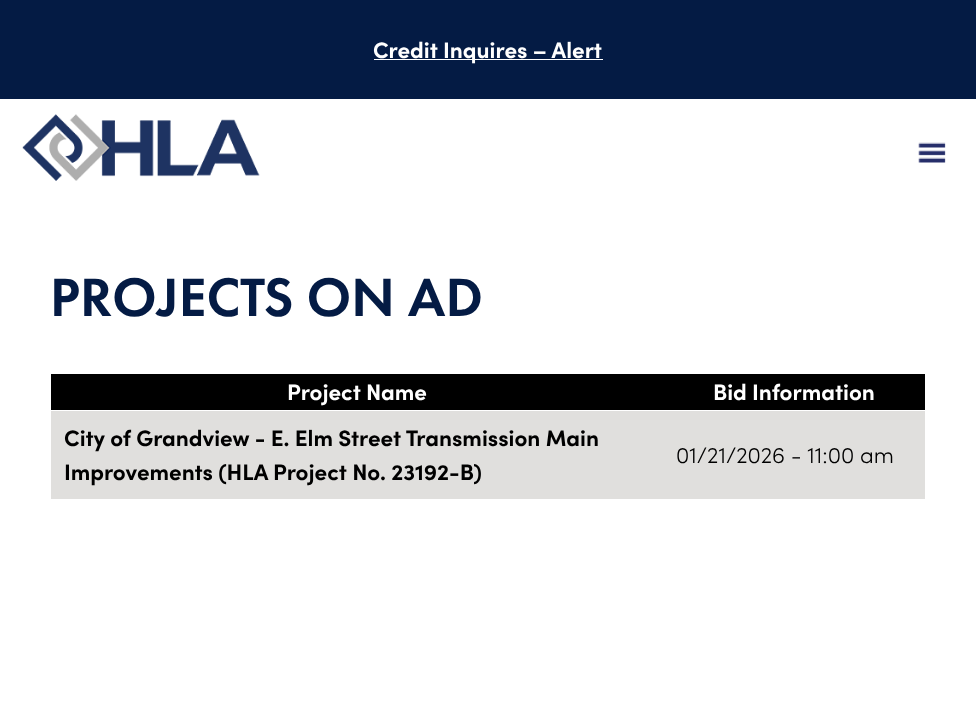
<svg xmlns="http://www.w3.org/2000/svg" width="976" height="726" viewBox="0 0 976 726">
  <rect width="100%" height="100%" fill="rgb(255,255,255)"/>
  <rect x="0" y="0" width="976" height="99" fill="rgb(4,27,68)"/>
  <rect x="374" y="59" width="229" height="1" fill="rgb(255,255,255)"/>
  <text x="373" y="58" font-family="Sofia" font-size="22.4" font-weight="bold" fill="rgb(255,255,255)">Credit Inquires – Alert</text>
  <image x="22" y="114" width="238" height="67" href="pic1.png"/>
  <image x="918" y="142" width="28" height="21" href="pic2.png"/>
  <text x="50" y="316" font-family="Futura PT" font-size="56" font-weight="500" fill="rgb(4,27,68)">PROJECTS ON AD</text>
  <rect x="51" y="374" width="874" height="36" fill="rgb(0,0,0)"/>
  <g font-family="Sofia" font-size="22.4" font-weight="bold" fill="rgb(255,255,255)">
    <text x="287" y="400">Project Name</text>
    <text x="713" y="400">Bid Information</text>
  </g>
  <rect x="51" y="411" width="874" height="88" fill="rgb(224,223,221)"/>
  <g font-family="Sofia" font-size="22.4" font-weight="bold" fill="rgb(0,0,0)">
    <text>
      <tspan x="64" y="446">City of Grandview - E. Elm Street Transmission Main</tspan>
      <tspan x="64" y="480">Improvements (HLA Project No. 23192-B)</tspan>
    </text>
  </g>
  <text x="676" y="463" font-family="Sofia" font-size="22.4" font-weight="300" fill="rgb(0,0,0)">01/21/2026 - 11:00 am</text>
</svg>
